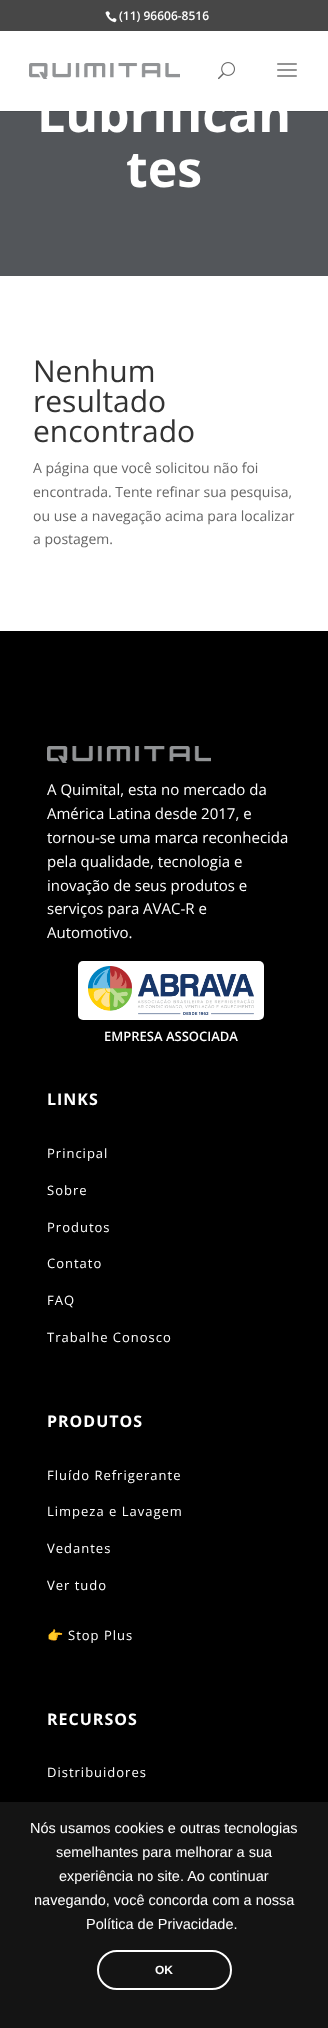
<svg xmlns="http://www.w3.org/2000/svg" width="328" height="2028" viewBox="0 0 328 2028">
  <rect width="100%" height="100%" fill="rgb(255,255,255)"/>
  <rect x="0" y="0" width="328" height="31" fill="rgb(71,71,71)"/>
  <image x="105" y="11" width="12" height="12" href="pic1.png"/>
  <text x="119" y="20" font-family="Open Sans" font-size="12" font-weight="600" fill="rgb(255,255,255)">(11) 96606-8516</text>
  <rect x="0" y="111" width="328" height="165" fill="rgb(83,86,90)"/>
  <rect x="0" y="111" width="328" height="1" fill="rgba(0,0,0,0.1)"/>
  <image x="29" y="63" width="151" height="16" href="pic2.png"/>
  <image x="218" y="62" width="17" height="18" href="pic3.png"/>
  <image x="277" y="63" width="20" height="14" href="pic4.png"/>
  <g font-family="Open Sans" font-size="50" font-weight="bold" fill="rgb(255,255,255)">
    <text x="37" y="132">Lubrifican</text>
    <text x="126" y="187">tes</text>
  </g>
  <g font-family="Open Sans" font-size="30" fill="rgb(51,51,51)">
    <text>
      <tspan x="33" y="382">Nenhum</tspan>
      <tspan x="33" y="412">resultado</tspan>
      <tspan x="33" y="442">encontrado</tspan>
    </text>
  </g>
  <g font-family="Open Sans" font-size="14" fill="rgb(102,102,102)">
    <text>
      <tspan x="33" y="473">A página que você solicitou não foi</tspan>
      <tspan x="33" y="497">encontrada. Tente refinar sua pesquisa,</tspan>
      <tspan x="33" y="521">ou use a navegação acima para localizar</tspan>
      <tspan x="33" y="544">a postagem.</tspan>
    </text>
  </g>
  <rect x="0" y="631" width="328" height="1171" fill="rgb(0,0,0)"/>
  <image x="47" y="746" width="164" height="17" href="pic5.png"/>
  <g font-family="Open Sans" font-size="15" fill="rgb(255,255,255)">
    <text>
      <tspan x="47" y="795">A Quimital, esta no mercado da</tspan>
      <tspan x="47" y="819">América Latina desde 2017, e</tspan>
      <tspan x="47" y="843">tornou-se uma marca reconhecida</tspan>
      <tspan x="47" y="867">pela qualidade, tecnologia e</tspan>
      <tspan x="47" y="891">inovação de seus produtos e</tspan>
      <tspan x="47" y="914">serviços para AVAC-R e</tspan>
      <tspan x="47" y="938">Automotivo.</tspan>
    </text>
  </g>
  <rect x="78" y="961" width="186" height="59" rx="5" fill="rgb(255,255,255)"/>
  <image x="88" y="966" width="166" height="49" href="pic6.png"/>
  <text x="104" y="1041" font-family="Open Sans" font-size="13" font-weight="600" fill="rgb(255,255,255)">EMPRESA ASSOCIADA</text>
  <text x="47" y="1105" font-family="Open Sans" font-size="16" font-weight="bold" letter-spacing="1" fill="rgb(255,255,255)">LINKS</text>
  <g font-family="Open Sans" font-size="13" letter-spacing="1" fill="rgb(255,255,255)">
    <text x="47" y="1158">Principal</text>
    <text x="47" y="1195">Sobre</text>
    <text x="47" y="1232">Produtos</text>
    <text x="47" y="1268">Contato</text>
    <text x="47" y="1305">FAQ</text>
    <text x="47" y="1342">Trabalhe Conosco</text>
  </g>
  <text x="47" y="1427" font-family="Open Sans" font-size="16" font-weight="bold" letter-spacing="1" fill="rgb(255,255,255)">PRODUTOS</text>
  <g font-family="Open Sans" font-size="13" letter-spacing="1" fill="rgb(255,255,255)">
    <text x="47" y="1480">Fluído Refrigerante</text>
    <text x="47" y="1516">Limpeza e Lavagem</text>
    <text x="47" y="1553">Vedantes</text>
    <text x="47" y="1590">Ver tudo</text>
  </g>
  <text x="47" y="1640" font-family="Noto Color Emoji" font-size="13" letter-spacing="1" fill="rgb(255,255,255)">👉</text>
  <text x="68" y="1640" font-family="Open Sans" font-size="13" letter-spacing="1" fill="rgb(255,255,255)">Stop Plus</text>
  <text x="47" y="1725" font-family="Open Sans" font-size="16" font-weight="bold" letter-spacing="1" fill="rgb(255,255,255)">RECURSOS</text>
  <text x="47" y="1777" font-family="Open Sans" font-size="13" letter-spacing="1" fill="rgb(255,255,255)">Distribuidores</text>
  <rect x="0" y="1802" width="328" height="226" fill="rgb(20,20,20)"/>
  <g font-family="Liberation Sans" font-size="14.5" fill="rgb(255,255,255)">
    <text x="30" y="1833">Nós usamos cookies e outras tecnologias</text>
    <text x="56" y="1857">semelhantes para melhorar a sua</text>
    <text x="59" y="1881">experiência no site. Ao continuar</text>
    <text x="34" y="1905">navegando, você concorda com a nossa</text>
    <text x="86" y="1929">Política de Privacidade.</text>
  </g>
  <rect x="98" y="1951" width="133" height="38" rx="19" fill="none" stroke="rgb(255,255,255)" stroke-width="2"/>
  <text x="155" y="1974" font-family="Liberation Sans" font-size="12" font-weight="bold" fill="rgb(255,255,255)">OK</text>
</svg>
